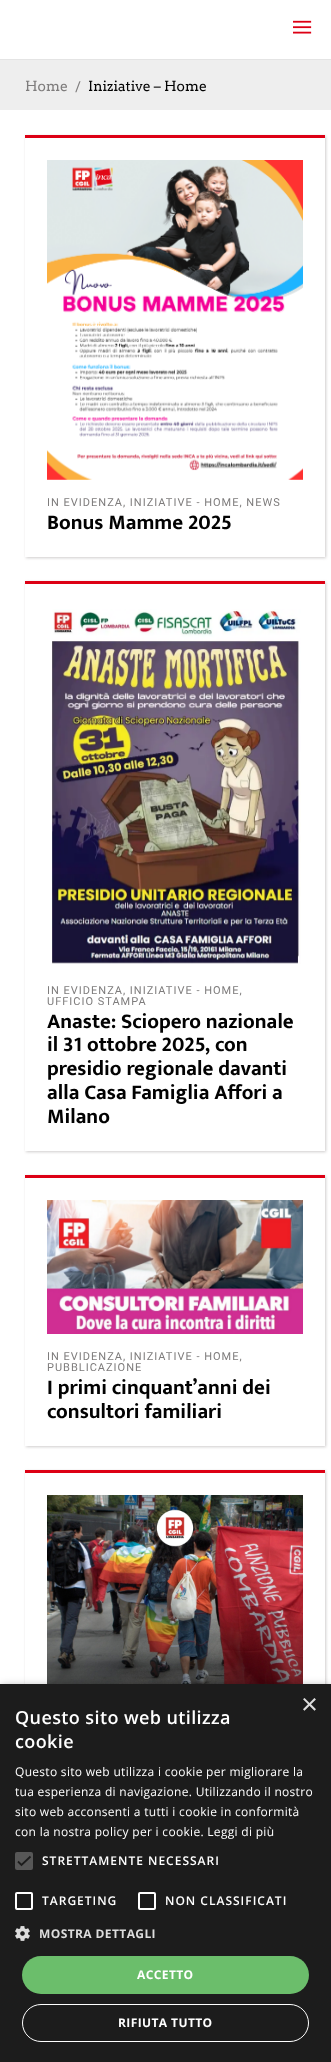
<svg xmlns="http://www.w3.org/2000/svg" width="331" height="2062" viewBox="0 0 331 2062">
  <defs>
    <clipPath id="clip1"><path d="M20 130H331V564H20ZM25 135H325V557H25Z" clip-rule="evenodd"/></clipPath>
    <clipPath id="clip2"><path d="M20 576H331V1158H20ZM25 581H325V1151H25Z" clip-rule="evenodd"/></clipPath>
    <clipPath id="clip3"><path d="M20 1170H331V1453H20ZM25 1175H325V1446H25Z" clip-rule="evenodd"/></clipPath>
    <clipPath id="clip4"><path d="M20 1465H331V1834H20ZM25 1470H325V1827H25Z" clip-rule="evenodd"/></clipPath>
  </defs>
  <rect width="100%" height="100%" fill="rgb(255,255,255)"/>
  <rect x="0" y="59" width="331" height="1" fill="rgb(228,228,228)"/>
  <image x="293" y="20" width="19" height="14" href="pic1.png"/>
  <rect x="0" y="60" width="331" height="50" fill="rgb(238,238,238)"/>
  <g font-family="Arvo" font-size="14" fill="rgb(126,124,124)">
    <text x="25" y="91">Home</text>
    <text x="75" y="92">/</text>
  </g>
  <text x="88" y="91" font-family="Arvo" font-size="14" fill="rgb(2,2,2)">Iniziative – Home</text>
  <g clip-path="url(#clip1)">
    <rect x="26" y="136" width="300" height="422" fill="rgb(206,204,204)" filter="blur(1.5px)"/>
  </g>
  <rect x="25" y="135" width="300" height="3" fill="rgb(221,0,20)"/>
  <image x="47" y="160" width="256" height="320" href="pic2.png"/>
  <text x="47" y="506" font-family="Roboto" font-size="11" letter-spacing="1" fill="rgb(126,124,124)">IN EVIDENZA, INIZIATIVE - HOME, NEWS</text>
  <text x="47" y="529" font-family="Ek Mukta" font-size="21" font-weight="bold" fill="rgb(2,2,2)">Bonus Mamme 2025</text>
  <g clip-path="url(#clip2)">
    <rect x="26" y="582" width="300" height="570" fill="rgb(206,204,204)" filter="blur(1.5px)"/>
  </g>
  <rect x="25" y="581" width="300" height="3" fill="rgb(221,0,20)"/>
  <image x="51" y="609" width="250" height="355" href="pic3.png"/>
  <g font-family="Roboto" font-size="11" letter-spacing="1" fill="rgb(126,124,124)">
    <text>
      <tspan x="47" y="994">IN EVIDENZA, INIZIATIVE - HOME,</tspan>
      <tspan x="47" y="1005">UFFICIO STAMPA</tspan>
    </text>
  </g>
  <g font-family="Ek Mukta" font-size="21" font-weight="bold" fill="rgb(2,2,2)">
    <text>
      <tspan x="47" y="1028">Anaste: Sciopero nazionale</tspan>
      <tspan x="47" y="1051">il 31 ottobre 2025, con</tspan>
      <tspan x="47" y="1075">presidio regionale davanti</tspan>
      <tspan x="47" y="1099">alla Casa Famiglia Affori a</tspan>
      <tspan x="47" y="1123">Milano</tspan>
    </text>
  </g>
  <g clip-path="url(#clip3)">
    <rect x="26" y="1176" width="300" height="271" fill="rgb(206,204,204)" filter="blur(1.5px)"/>
  </g>
  <rect x="25" y="1175" width="300" height="3" fill="rgb(221,0,20)"/>
  <image x="47" y="1200" width="256" height="134" href="pic4.png"/>
  <g font-family="Roboto" font-size="11" letter-spacing="1" fill="rgb(126,124,124)">
    <text>
      <tspan x="47" y="1360">IN EVIDENZA, INIZIATIVE - HOME,</tspan>
      <tspan x="47" y="1371">PUBBLICAZIONE</tspan>
    </text>
  </g>
  <g font-family="Ek Mukta" font-size="21" font-weight="bold" fill="rgb(2,2,2)">
    <text>
      <tspan x="47" y="1394">I primi cinquant’anni dei</tspan>
      <tspan x="47" y="1418">consultori familiari</tspan>
    </text>
  </g>
  <g clip-path="url(#clip4)">
    <rect x="26" y="1471" width="300" height="357" fill="rgb(206,204,204)" filter="blur(1.5px)"/>
  </g>
  <rect x="25" y="1470" width="300" height="3" fill="rgb(221,0,20)"/>
  <image x="47" y="1495" width="256" height="189" href="pic5.png"/>
  <rect x="1" y="1686" width="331" height="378" fill="rgba(0,0,0,0.35)" filter="blur(4px)"/>
  <rect x="0" y="1684" width="331" height="378" fill="rgb(28,28,28)"/>
  <text x="301" y="1714" font-family="Liberation Sans" font-size="29" fill="rgb(221,221,221)">×</text>
  <g font-family="Open Sans" font-size="18" font-weight="600" letter-spacing="0.4" fill="rgb(255,255,255)">
    <text>
      <tspan x="15" y="1724">Questo sito web utilizza</tspan>
      <tspan x="15" y="1748">cookie</tspan>
    </text>
  </g>
  <g font-family="Open Sans" font-size="12" letter-spacing="0.3" fill="rgb(255,255,255)">
    <text>
      <tspan x="15" y="1776">Questo sito web utilizza i cookie per migliorare la</tspan>
      <tspan x="15" y="1796">tua esperienza di navigazione. Utilizzando il nostro</tspan>
      <tspan x="15" y="1816">sito web acconsenti a tutti i cookie in conformità</tspan>
      <tspan x="15" y="1836">con la nostra policy per i cookie. Leggi di più</tspan>
    </text>
  </g>
  <rect x="15" y="1852" width="18" height="18" rx="2" fill="rgb(87,87,87)"/>
  <path d="M18 1861.5L21.5 1865L30.5 1856.5" fill="none" stroke="rgb(28,28,28)" stroke-width="1.8"/>
  <text x="42" y="1865" font-family="Open Sans" font-size="12" font-weight="600" letter-spacing="1" fill="rgb(255,255,255)">STRETTAMENTE NECESSARI</text>
  <rect x="16" y="1893" width="16" height="16" rx="1" fill="none" stroke="rgb(255,255,255)" stroke-width="2"/>
  <text x="42" y="1905" font-family="Open Sans" font-size="12" font-weight="600" letter-spacing="1" fill="rgb(255,255,255)">TARGETING</text>
  <rect x="139" y="1893" width="16" height="16" rx="1" fill="none" stroke="rgb(255,255,255)" stroke-width="2"/>
  <text x="165" y="1905" font-family="Open Sans" font-size="12" font-weight="600" letter-spacing="1" fill="rgb(255,255,255)">NON CLASSIFICATI</text>
  <image x="15" y="1926" width="15" height="15" href="pic6.png"/>
  <text x="39" y="1938" font-family="Open Sans" font-size="12" font-weight="bold" letter-spacing="0.4" fill="rgb(221,221,221)">MOSTRA DETTAGLI</text>
  <rect x="22" y="1956" width="287" height="38" rx="19" fill="rgb(107,190,107)"/>
  <text x="137" y="1979" font-family="Open Sans" font-size="12" font-weight="bold" letter-spacing="0.4" fill="rgb(255,255,255)">ACCETTO</text>
  <rect x="22.5" y="2004.5" width="286" height="37" rx="18.5" fill="none" stroke="rgb(255,255,255)"/>
  <text x="118" y="2027" font-family="Open Sans" font-size="12" font-weight="bold" letter-spacing="0.4" fill="rgb(255,255,255)">RIFIUTA TUTTO</text>
</svg>
